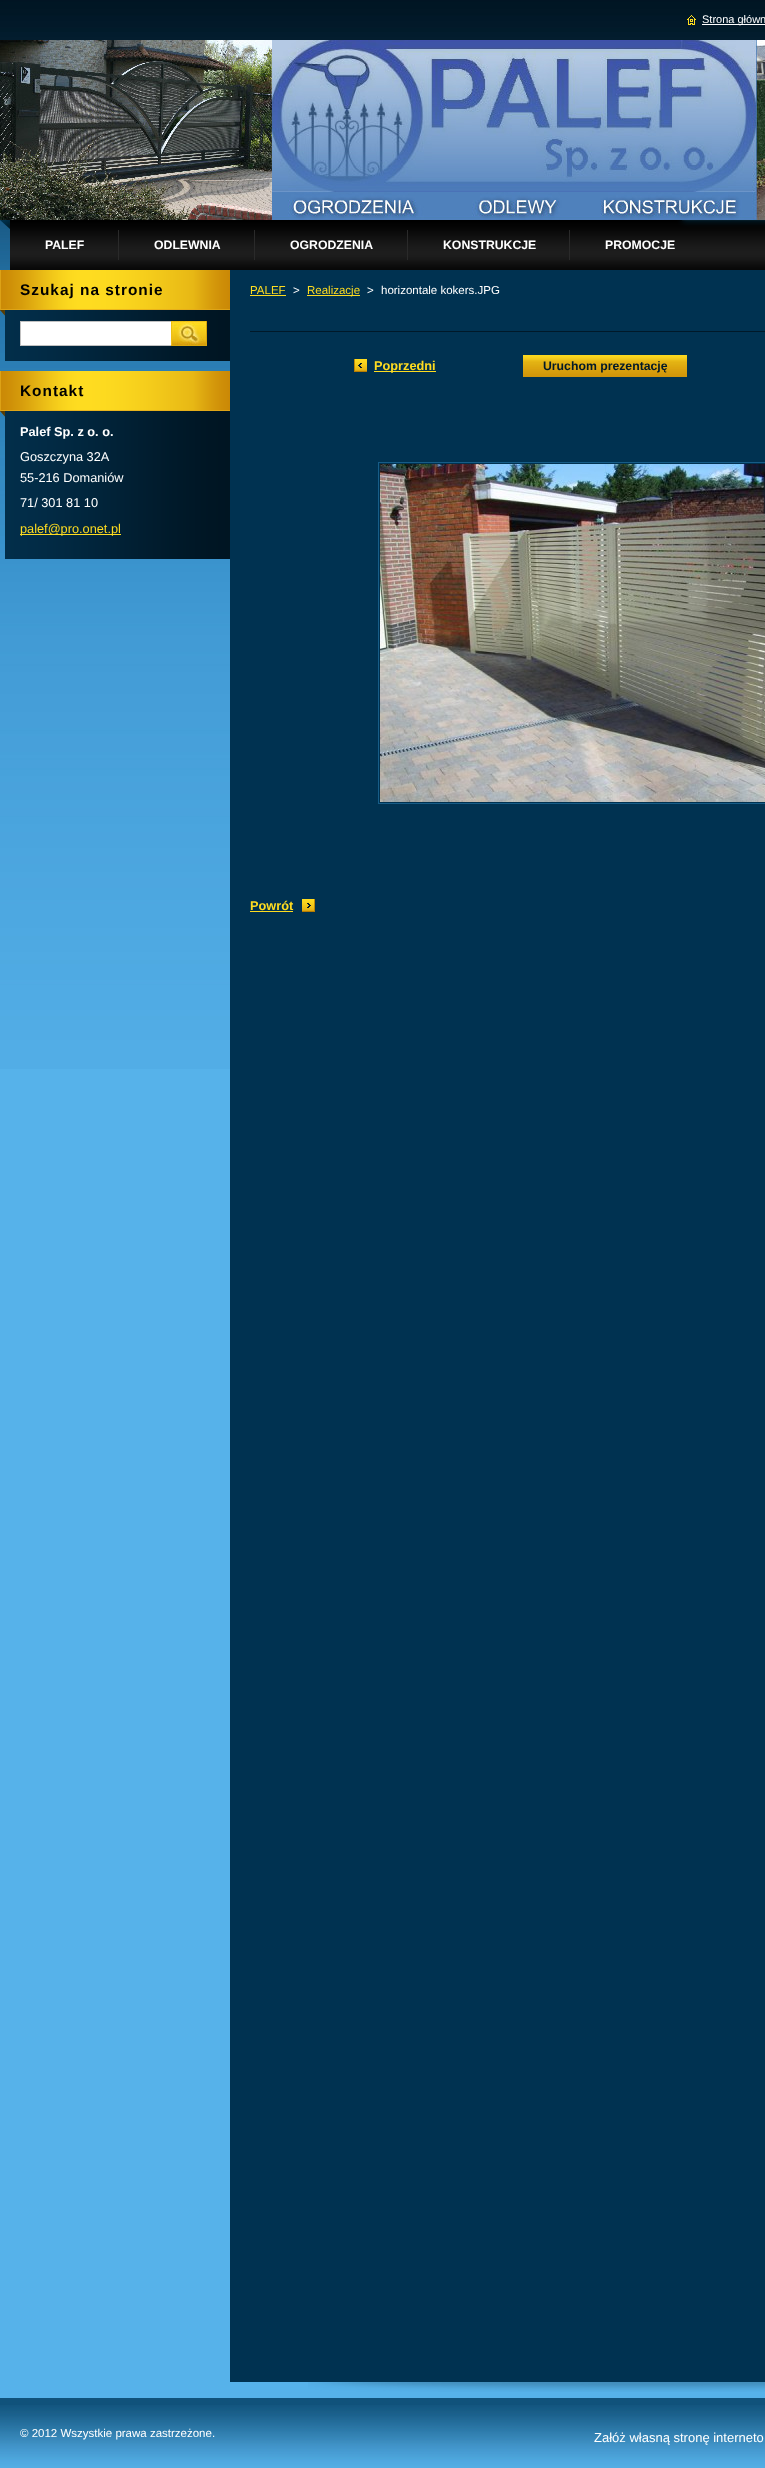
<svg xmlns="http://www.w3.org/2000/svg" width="765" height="2468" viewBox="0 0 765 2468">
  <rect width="100%" height="100%" fill="rgb(86,178,234)"/>
  <image x="0" y="0" width="765" height="1069" href="pic1.png"/>
  <image x="687" y="15" width="9" height="10" href="pic2.png"/>
  <rect x="702" y="24" width="63" height="1" fill="rgb(255,255,255)"/>
  <text x="702" y="23" font-family="Liberation Sans" font-size="11" fill="rgb(255,255,255)">Strona główn</text>
  <image x="0" y="40" width="765" height="180" href="pic3.png"/>
  <image x="0" y="220" width="765" height="50" href="pic4.png"/>
  <rect x="118" y="230" width="1" height="30" fill="rgb(42,42,42)"/>
  <text x="45" y="249" font-family="Liberation Sans" font-size="12.25" font-weight="bold" fill="rgb(255,255,255)">PALEF</text>
  <rect x="254" y="230" width="1" height="30" fill="rgb(42,42,42)"/>
  <text x="154" y="249" font-family="Liberation Sans" font-size="12.25" font-weight="bold" fill="rgb(255,255,255)">ODLEWNIA</text>
  <rect x="407" y="230" width="1" height="30" fill="rgb(42,42,42)"/>
  <text x="290" y="249" font-family="Liberation Sans" font-size="12.25" font-weight="bold" fill="rgb(255,255,255)">OGRODZENIA</text>
  <rect x="569" y="230" width="1" height="30" fill="rgb(42,42,42)"/>
  <g font-family="Liberation Sans" font-size="12.25" font-weight="bold" fill="rgb(255,255,255)">
    <text x="443" y="249">KONSTRUKCJE</text>
    <text x="605" y="249">PROMOCJE</text>
  </g>
  <image x="5" y="316" width="225" height="45" href="pic5.png"/>
  <image x="0" y="270" width="230" height="46" href="pic6.png"/>
  <text x="20" y="295" font-family="Liberation Sans" font-size="15.4" font-weight="bold" letter-spacing="1" fill="rgb(0,0,0)">Szukaj na stronie</text>
  <rect x="20.5" y="321.5" width="151" height="24" fill="rgb(255,255,255)" stroke="rgb(193,193,193)"/>
  <image x="171" y="321" width="36" height="25" href="pic7.png"/>
  <image x="5" y="417" width="225" height="142" href="pic8.png"/>
  <image x="0" y="371" width="230" height="46" href="pic9.png"/>
  <text x="20" y="396" font-family="Liberation Sans" font-size="15.4" font-weight="bold" letter-spacing="1" fill="rgb(0,0,0)">Kontakt</text>
  <text x="20" y="436" font-family="Liberation Sans" font-size="12.75" font-weight="bold" fill="rgb(255,255,255)">Palef Sp. z o. o.</text>
  <g font-family="Liberation Sans" font-size="12.75" fill="rgb(255,255,255)">
    <text>
      <tspan x="20" y="461">Goszczyna 32A</tspan>
      <tspan x="20" y="482">55-216 Domaniów</tspan>
      <tspan x="20" y="507">71/ 301 81 10</tspan>
    </text>
  </g>
  <rect x="20" y="534" width="101" height="1" fill="rgb(254,220,32)"/>
  <text x="20" y="533" font-family="Liberation Sans" font-size="12.75" fill="rgb(254,220,32)">palef@pro.onet.pl</text>
  <image x="308" y="2382" width="457" height="10" href="pic10.png"/>
  <rect x="230" y="270" width="535" height="2112" fill="rgb(0,50,81)"/>
  <text x="250" y="294" font-family="Liberation Sans" font-size="11.5" fill="rgb(254,220,32)">PALEF</text>
  <rect x="250" y="295" width="36" height="1" fill="rgb(254,220,32)"/>
  <text x="293" y="294" font-family="Liberation Sans" font-size="11.5" fill="rgb(255,255,255)">&gt;</text>
  <rect x="307" y="295" width="53" height="1" fill="rgb(254,220,32)"/>
  <text x="307" y="294" font-family="Liberation Sans" font-size="11.5" fill="rgb(254,220,32)">Realizacje</text>
  <g font-family="Liberation Sans" font-size="11.5" fill="rgb(255,255,255)">
    <text x="367" y="294">&gt;</text>
    <text x="381" y="294">horizontale kokers.JPG</text>
  </g>
  <rect x="250" y="331" width="515" height="1" fill="rgb(0,25,41)"/>
  <image x="354" y="359" width="13" height="13" href="pic11.png"/>
  <rect x="374" y="371" width="62" height="1" fill="rgb(254,220,32)"/>
  <text x="374" y="370" font-family="Liberation Sans" font-size="12.75" font-weight="bold" fill="rgb(254,220,32)">Poprzedni</text>
  <image x="523" y="355" width="164" height="22" href="pic12.png"/>
  <text x="543" y="370" font-family="Liberation Sans" font-size="12.25" font-weight="bold" fill="rgb(0,25,41)">Uruchom prezentację</text>
  <rect x="378.5" y="462.5" width="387" height="341" fill="none" stroke="rgb(22,92,135)"/>
  <image x="380" y="464" width="385" height="338" href="pic13.png"/>
  <image x="302" y="899" width="13" height="13" href="pic14.png"/>
  <text x="250" y="910" font-family="Liberation Sans" font-size="12.75" font-weight="bold" fill="rgb(254,220,32)">Powrót</text>
  <rect x="250" y="911" width="43" height="1" fill="rgb(254,220,32)"/>
  <rect x="0" y="2398" width="765" height="7" fill="rgb(16,82,123)"/>
  <image x="0" y="2405" width="765" height="63" href="pic15.png"/>
  <text x="20" y="2437" font-family="Liberation Sans" font-size="11.5" fill="rgb(255,255,255)">© 2012 Wszystkie prawa zastrzeżone.</text>
  <text x="594" y="2442" font-family="Liberation Sans" font-size="13" fill="rgb(255,255,255)">Załóż własną stronę interneto</text>
</svg>
